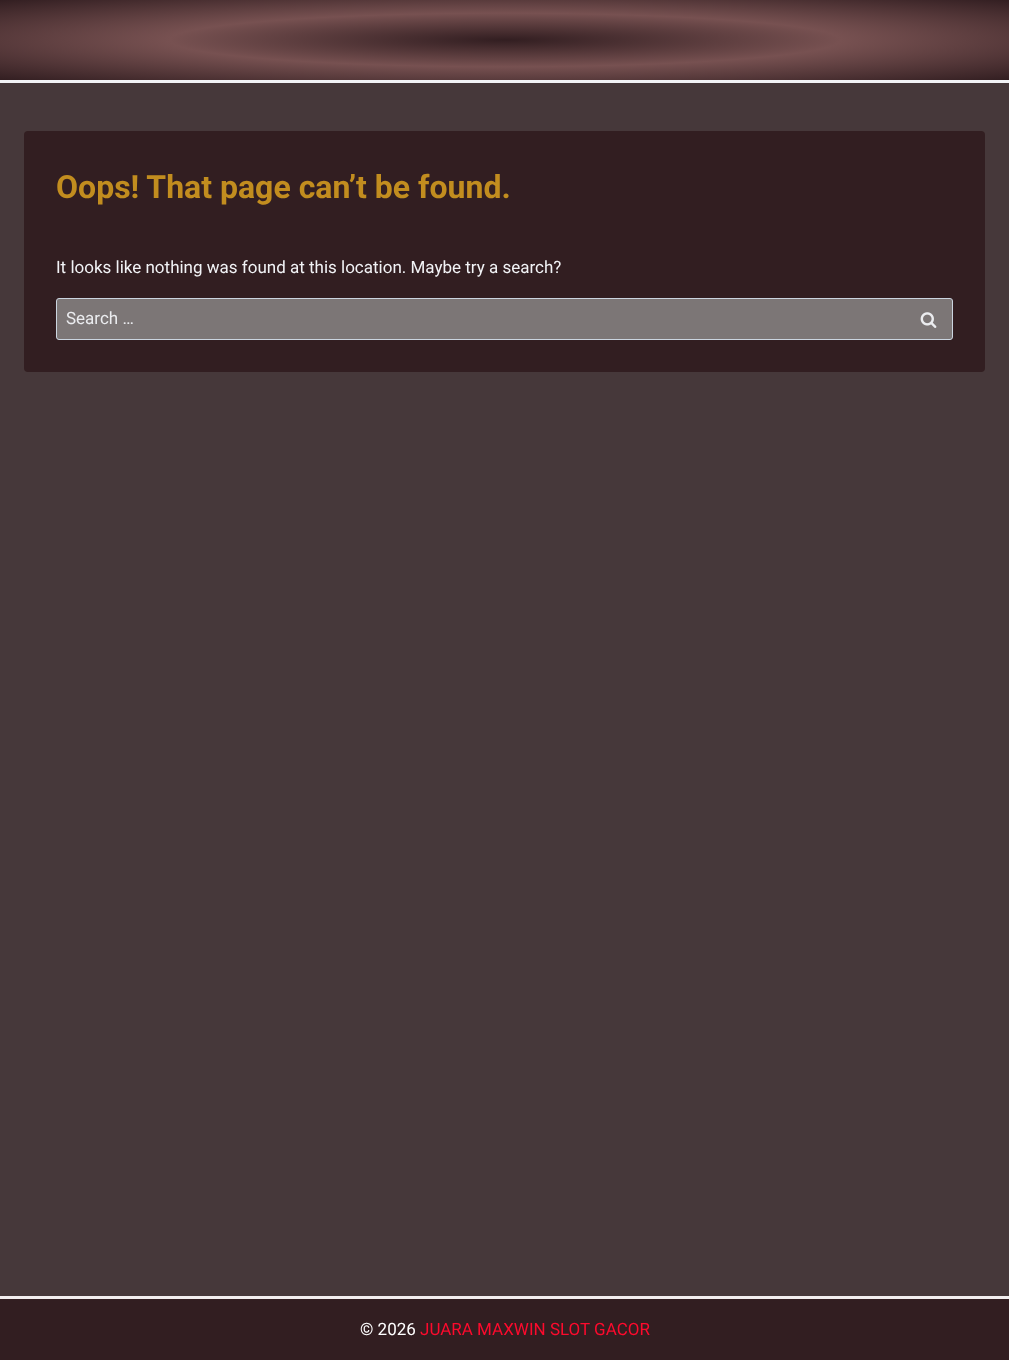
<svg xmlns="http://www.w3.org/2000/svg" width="1009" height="1360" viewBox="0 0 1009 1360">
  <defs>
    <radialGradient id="g1" gradientUnits="userSpaceOnUse" cx="0" cy="0" r="1" gradientTransform="matrix(713 0 0 57 505 40)"><stop offset="0" stop-color="rgb(50,30,33)"/><stop offset="0.47" stop-color="rgb(119,81,81)"/><stop offset="1" stop-color="rgb(50,30,33)"/></radialGradient>
  </defs>
  <rect width="100%" height="100%" fill="rgb(70,56,58)"/>
  <rect x="0" y="0" width="1009" height="80" fill="url(#g1)"/>
  <rect x="0" y="80" width="1009" height="3" fill="rgb(242,243,246)"/>
  <rect x="24" y="131" width="961" height="241" rx="4" fill="rgb(50,30,33)"/>
  <text x="56" y="198" font-family="Roboto" font-size="32" font-weight="bold" fill="rgb(194,141,31)">Oops! That page can’t be found.</text>
  <text x="56" y="273" font-family="Roboto" font-size="17" fill="rgb(242,243,246)">It looks like nothing was found at this location. Maybe try a search?</text>
  <rect x="56.5" y="298.5" width="896" height="41" rx="2.5" fill="rgb(124,118,118)" stroke="rgb(203,213,224)"/>
  <text x="66" y="324" font-family="Roboto" font-size="17" fill="rgb(235,236,239)">Search …</text>
  <image x="920" y="312" width="17" height="16" href="pic1.png"/>
  <rect x="0" y="1299" width="1009" height="61" fill="rgb(50,30,33)"/>
  <rect x="0" y="1296" width="1009" height="3" fill="rgb(242,238,239)"/>
  <text x="360" y="1335" font-family="Roboto" font-size="17" fill="rgb(255,255,255)">© 2026</text>
  <text x="420" y="1335" font-family="Roboto" font-size="17" fill="rgb(253,10,45)">JUARA MAXWIN SLOT GACOR</text>
</svg>
